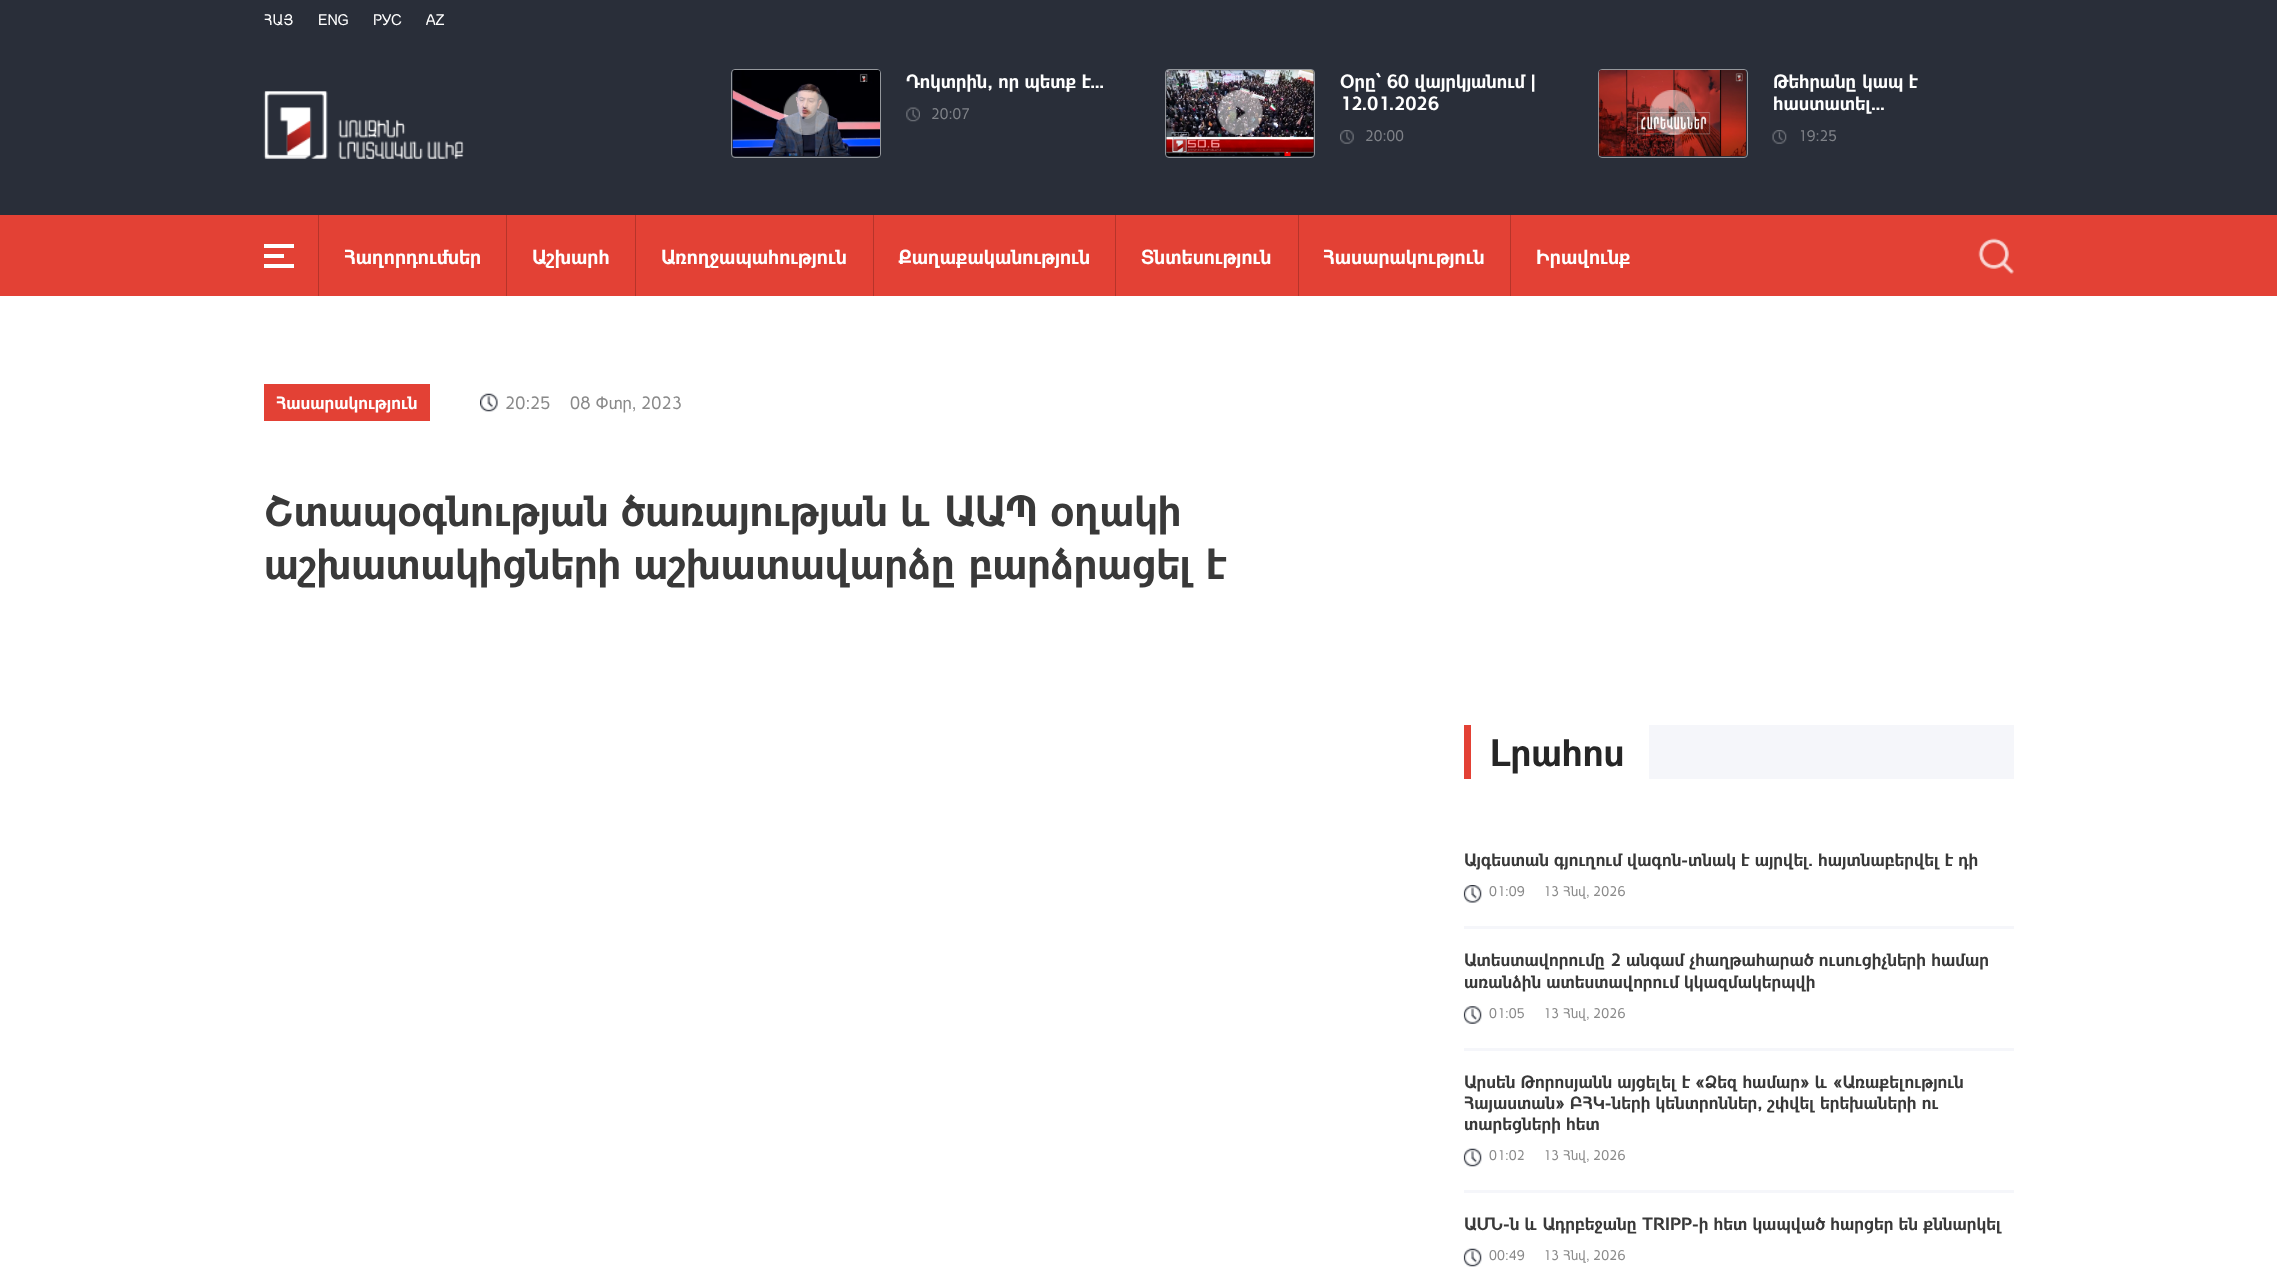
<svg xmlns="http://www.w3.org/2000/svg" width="2277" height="1270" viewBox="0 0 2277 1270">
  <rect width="100%" height="100%" fill="rgb(255,255,255)"/>
  <rect x="0" y="0" width="2277" height="215" fill="rgb(41,46,57)"/>
  <g font-family="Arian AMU" font-size="15" fill="rgb(255,255,255)">
    <text x="264" y="25">ՀԱՅ</text>
    <text x="318" y="25">ENG</text>
    <text x="373" y="25">РУС</text>
    <text x="426" y="25">AZ</text>
  </g>
  <image x="263" y="91" width="201" height="68" href="pic1.png"/>
  <rect x="731.5" y="69.5" width="149" height="88" rx="3.5" fill="none" stroke="rgb(148,151,156)"/>
  <image x="732" y="70" width="148" height="87" href="pic2.png"/>
  <image x="783" y="90" width="46" height="45" href="pic3.png"/>
  <text x="906" y="88" font-family="Arian AMU" font-size="18.75" font-weight="bold" fill="rgb(255,255,255)">Դոկտրին, որ պետք է...</text>
  <image x="906" y="107" width="14" height="15" href="pic4.png"/>
  <text x="931" y="119" font-family="Arian AMU" font-size="15" fill="rgb(127,130,136)">20:07</text>
  <rect x="1165.5" y="69.5" width="149" height="88" rx="3.5" fill="none" stroke="rgb(148,151,156)"/>
  <image x="1166" y="70" width="148" height="87" href="pic5.png"/>
  <image x="1217" y="90" width="46" height="45" href="pic6.png"/>
  <g font-family="Arian AMU" font-size="18.75" font-weight="bold" fill="rgb(255,255,255)">
    <text>
      <tspan x="1340" y="88">Օրը՝ 60 վայրկյանում |</tspan>
      <tspan x="1340" y="110">12.01.2026</tspan>
    </text>
  </g>
  <image x="1340" y="130" width="14" height="14" href="pic7.png"/>
  <text x="1365" y="141" font-family="Arian AMU" font-size="15" fill="rgb(127,130,136)">20:00</text>
  <rect x="1598.5" y="69.5" width="149" height="88" rx="3.5" fill="none" stroke="rgb(148,151,156)"/>
  <image x="1598" y="70" width="149" height="87" href="pic8.png"/>
  <image x="1650" y="90" width="45" height="45" href="pic9.png"/>
  <g font-family="Arian AMU" font-size="18.75" font-weight="bold" fill="rgb(255,255,255)">
    <text>
      <tspan x="1773" y="88">Թեհրանը կապ է</tspan>
      <tspan x="1773" y="110">հաստատել...</tspan>
    </text>
  </g>
  <image x="1772" y="130" width="15" height="14" href="pic10.png"/>
  <text x="1798" y="141" font-family="Arian AMU" font-size="15" fill="rgb(127,130,136)">19:25</text>
  <rect x="0" y="215" width="2277" height="81" fill="rgb(227,65,53)"/>
  <rect x="264" y="244" width="30" height="4" fill="rgb(255,255,255)"/>
  <rect x="264" y="254" width="20" height="4" fill="rgb(255,255,255)"/>
  <rect x="264" y="264" width="30" height="4" fill="rgb(255,255,255)"/>
  <rect x="318" y="215" width="1" height="81" fill="rgb(182,52,42)"/>
  <text x="344" y="264" font-family="Arian AMU" font-size="20" font-weight="bold" fill="rgb(255,255,255)">Հաղորդումներ</text>
  <rect x="506" y="215" width="1" height="81" fill="rgb(182,52,42)"/>
  <text x="532" y="264" font-family="Arian AMU" font-size="20" font-weight="bold" fill="rgb(255,255,255)">Աշխարհ</text>
  <rect x="635" y="215" width="1" height="81" fill="rgb(182,52,42)"/>
  <text x="661" y="264" font-family="Arian AMU" font-size="20" font-weight="bold" fill="rgb(255,255,255)">Առողջապահություն</text>
  <rect x="873" y="215" width="1" height="81" fill="rgb(182,52,42)"/>
  <text x="898" y="264" font-family="Arian AMU" font-size="20" font-weight="bold" fill="rgb(255,255,255)">Քաղաքականություն</text>
  <rect x="1115" y="215" width="1" height="81" fill="rgb(182,52,42)"/>
  <text x="1141" y="264" font-family="Arian AMU" font-size="20" font-weight="bold" fill="rgb(255,255,255)">Տնտեսություն</text>
  <rect x="1298" y="215" width="1" height="81" fill="rgb(182,52,42)"/>
  <text x="1323" y="264" font-family="Arian AMU" font-size="20" font-weight="bold" fill="rgb(255,255,255)">Հասարակություն</text>
  <rect x="1510" y="215" width="1" height="81" fill="rgb(182,52,42)"/>
  <text x="1536" y="264" font-family="Arian AMU" font-size="20" font-weight="bold" fill="rgb(255,255,255)">Իրավունք</text>
  <image x="1978" y="238" width="36" height="36" href="pic11.png"/>
  <rect x="264" y="384" width="166" height="37" fill="rgb(227,65,53)"/>
  <text x="276" y="409" font-family="Arian AMU" font-size="17.5" font-weight="bold" fill="rgb(255,255,255)">Հասարակություն</text>
  <image x="480" y="393" width="18" height="19" href="pic12.png"/>
  <g font-family="Arian AMU" font-size="17.5" fill="rgb(138,138,138)">
    <text x="505" y="409">20:25</text>
    <text x="570" y="409">08 Փտր, 2023</text>
  </g>
  <g font-family="Arian AMU" font-size="42.5" font-weight="bold" fill="rgb(57,57,57)">
    <text>
      <tspan x="264" y="526">Շտապօգնության ծառայության և ԱԱՊ օղակի</tspan>
      <tspan x="264" y="579">աշխատակիցների աշխատավարձը բարձրացել է</tspan>
    </text>
  </g>
  <rect x="1649" y="725" width="365" height="54" fill="rgb(245,246,250)"/>
  <rect x="1464" y="725" width="7" height="54" fill="rgb(227,65,53)"/>
  <text x="1490" y="766" font-family="Arian AMU" font-size="37.5" font-weight="bold" fill="rgb(38,38,38)">Լրահոս</text>
  <rect x="1464" y="926" width="550" height="3" fill="rgb(245,246,250)"/>
  <text x="1464" y="866" font-family="Arian AMU" font-size="17.5" font-weight="bold" fill="rgb(57,57,57)">Այգեստան գյուղում վագոն-տնակ է այրվել. հայտնաբերվել է դի</text>
  <image x="1463" y="885" width="19" height="18" href="pic13.png"/>
  <g font-family="Arian AMU" font-size="13.75" fill="rgb(138,138,138)">
    <text x="1489" y="896">01:09</text>
    <text x="1543" y="896">13 Հնվ, 2026</text>
  </g>
  <rect x="1464" y="1048" width="550" height="3" fill="rgb(245,246,250)"/>
  <g font-family="Arian AMU" font-size="17.5" font-weight="bold" fill="rgb(57,57,57)">
    <text>
      <tspan x="1464" y="966">Ատեստավորումը 2 անգամ չհաղթահարած ուսուցիչների համար</tspan>
      <tspan x="1464" y="988">առանձին ատեստավորում կկազմակերպվի</tspan>
    </text>
  </g>
  <image x="1463" y="1006" width="19" height="18" href="pic14.png"/>
  <g font-family="Arian AMU" font-size="13.75" fill="rgb(138,138,138)">
    <text x="1489" y="1018">01:05</text>
    <text x="1543" y="1018">13 Հնվ, 2026</text>
  </g>
  <rect x="1464" y="1190" width="550" height="3" fill="rgb(245,246,250)"/>
  <g font-family="Arian AMU" font-size="17.5" font-weight="bold" fill="rgb(57,57,57)">
    <text>
      <tspan x="1464" y="1088">Արսեն Թորոսյանն այցելել է «Ձեզ համար» և «Առաքելություն</tspan>
      <tspan x="1464" y="1109">Հայաստան» ԲՀԿ-ների կենտրոններ, շփվել երեխաների ու</tspan>
      <tspan x="1464" y="1130">տարեցների հետ</tspan>
    </text>
  </g>
  <image x="1463" y="1148" width="19" height="19" href="pic15.png"/>
  <g font-family="Arian AMU" font-size="13.75" fill="rgb(138,138,138)">
    <text x="1489" y="1160">01:02</text>
    <text x="1543" y="1160">13 Հնվ, 2026</text>
  </g>
  <text x="1464" y="1230" font-family="Arian AMU" font-size="17.5" font-weight="bold" fill="rgb(57,57,57)">ԱՄՆ-ն և Ադրբեջանը TRIPP-ի հետ կապված հարցեր են քննարկել</text>
  <image x="1463" y="1248" width="19" height="19" href="pic15.png"/>
  <g font-family="Arian AMU" font-size="13.75" fill="rgb(138,138,138)">
    <text x="1489" y="1260">00:49</text>
    <text x="1543" y="1260">13 Հնվ, 2026</text>
  </g>
</svg>
